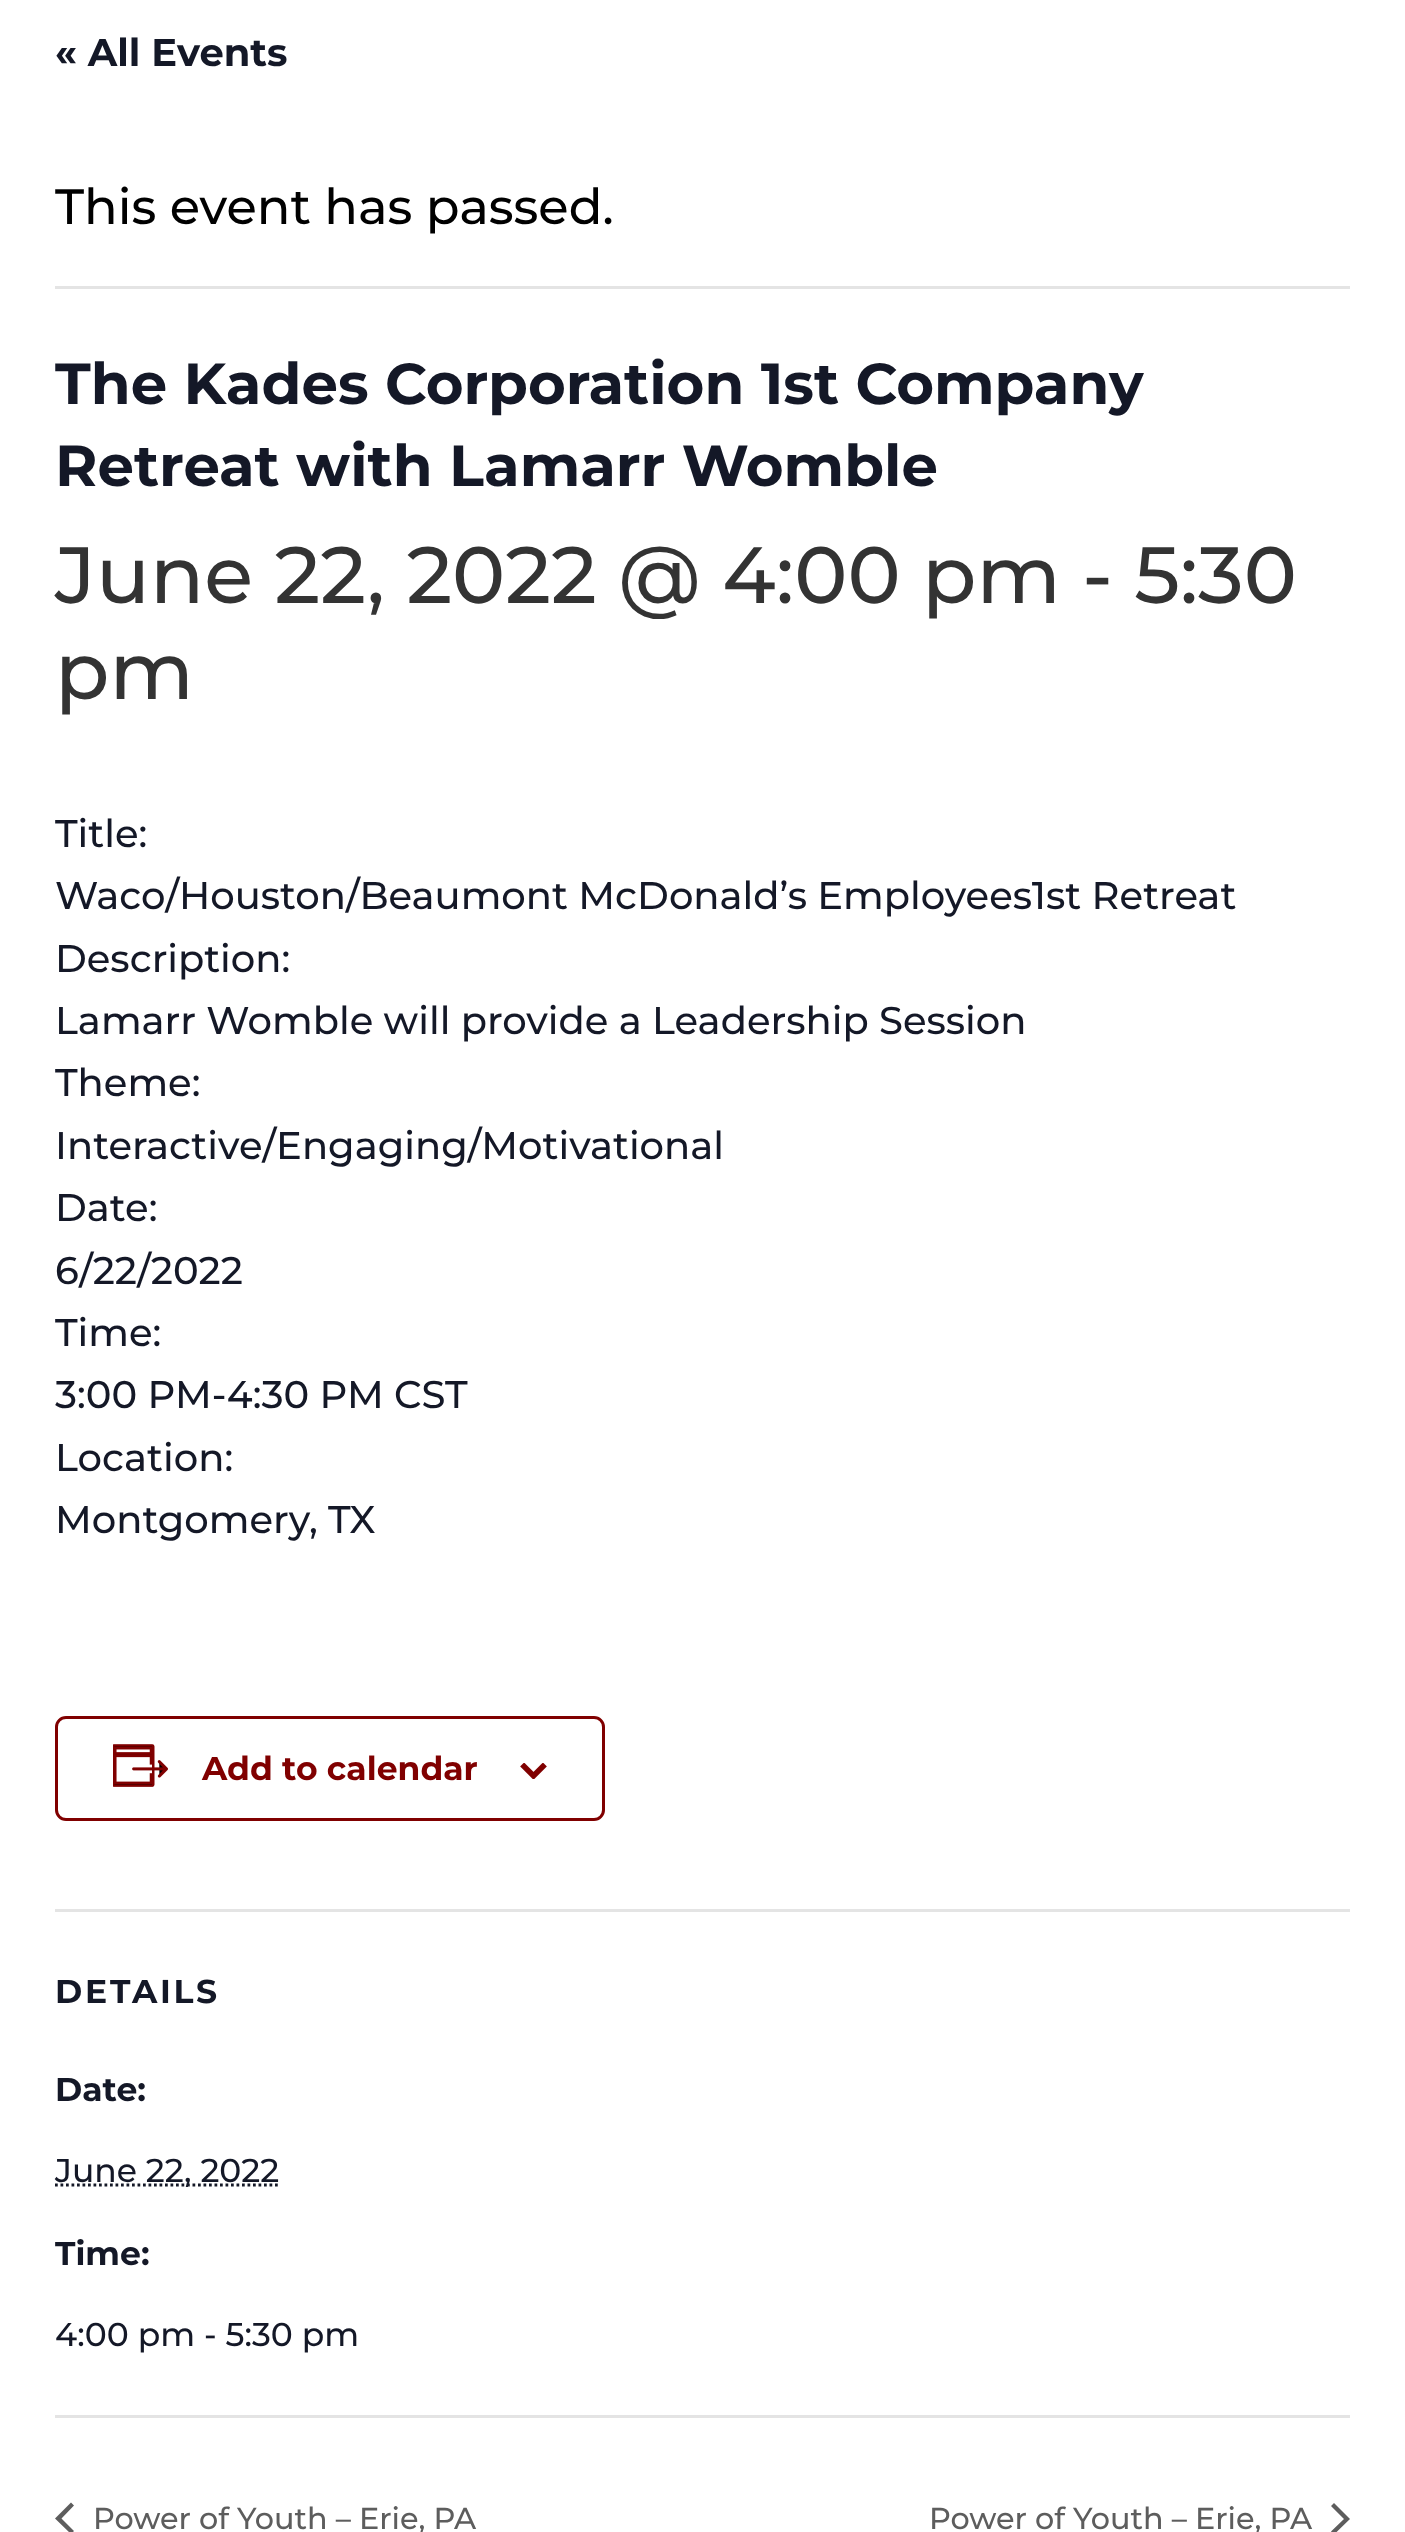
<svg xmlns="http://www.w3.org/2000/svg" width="1405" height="2532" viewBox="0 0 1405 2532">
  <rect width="100%" height="100%" fill="rgb(255,255,255)"/>
  <text x="55" y="66" font-family="Montserrat" font-size="38.5" font-weight="bold" fill="rgb(20,24,39)">« All Events</text>
  <rect x="55" y="286" width="1295" height="3" fill="rgb(228,228,228)"/>
  <text x="55" y="224" font-family="Montserrat" font-size="49.5" font-weight="500" fill="rgb(0,0,0)">This event has passed.</text>
  <g font-family="Montserrat" font-size="57.75" font-weight="bold" fill="rgb(20,24,39)">
    <text>
      <tspan x="55" y="404">The Kades Corporation 1st Company</tspan>
      <tspan x="55" y="486">Retreat with Lamarr Womble</tspan>
    </text>
  </g>
  <g font-family="Montserrat" font-size="79.75" font-weight="500" fill="rgb(51,51,51)">
    <text>
      <tspan x="55" y="603">June 22, 2022 @ 4:00 pm - 5:30</tspan>
      <tspan x="55" y="699">pm</tspan>
    </text>
  </g>
  <g font-family="Montserrat" font-size="38.5" font-weight="500" fill="rgb(20,24,39)">
    <text>
      <tspan x="55" y="847">Title:</tspan>
      <tspan x="55" y="909">Waco/Houston/Beaumont McDonald’s Employees1st Retreat</tspan>
      <tspan x="55" y="972">Description:</tspan>
      <tspan x="55" y="1034">Lamarr Womble will provide a Leadership Session</tspan>
      <tspan x="55" y="1096">Theme:</tspan>
      <tspan x="55" y="1159">Interactive/Engaging/Motivational</tspan>
      <tspan x="55" y="1221">Date:</tspan>
      <tspan x="55" y="1284">6/22/2022</tspan>
      <tspan x="55" y="1346">Time:</tspan>
      <tspan x="55" y="1408">3:00 PM-4:30 PM CST</tspan>
      <tspan x="55" y="1471">Location:</tspan>
      <tspan x="55" y="1533">Montgomery, TX</tspan>
    </text>
  </g>
  <rect x="56.5" y="1717.5" width="547" height="102" rx="9.5" fill="none" stroke="rgb(128,0,0)" stroke-width="3"/>
  <image x="113" y="1744" width="55" height="43" href="pic1.png"/>
  <text x="202" y="1780" font-family="Montserrat" font-size="33" font-weight="bold" fill="rgb(128,0,0)">Add to calendar</text>
  <image x="520" y="1763" width="27" height="16" href="pic2.png"/>
  <rect x="55" y="1909" width="1295" height="3" fill="rgb(228,228,228)"/>
  <text x="55" y="2003" font-family="Montserrat" font-size="33" font-weight="bold" letter-spacing="2.75" fill="rgb(20,24,39)">DETAILS</text>
  <text x="55" y="2101" font-family="Montserrat" font-size="33" font-weight="bold" fill="rgb(20,24,39)">Date:</text>
  <path d="M55 2185H279.5" fill="none" stroke="rgb(20,24,39)" stroke-width="2.8" stroke-dasharray="2.75 2.75"/>
  <text x="55" y="2182" font-family="Montserrat" font-size="33" font-weight="500" fill="rgb(20,24,39)">June 22, 2022</text>
  <text x="55" y="2265" font-family="Montserrat" font-size="33" font-weight="bold" fill="rgb(20,24,39)">Time:</text>
  <text x="55" y="2346" font-family="Montserrat" font-size="33" font-weight="500" fill="rgb(20,24,39)">4:00 pm - 5:30 pm</text>
  <rect x="55" y="2415" width="1295" height="3" fill="rgb(228,228,228)"/>
  <path d="M74 2531L71 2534L55 2518.5L71 2502.5L74 2505.5L61.5 2518.5Z" fill="rgb(93,93,93)"/>
  <g font-family="Montserrat" font-size="30.25" font-weight="500" fill="rgb(93,93,93)">
    <text x="93" y="2529">Power of Youth – Erie, PA</text>
    <text x="929" y="2529">Power of Youth – Erie, PA</text>
  </g>
  <path d="M1331 2506L1334 2503L1350 2519L1334 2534.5L1331 2531.5L1344 2519Z" fill="rgb(93,93,93)"/>
</svg>
